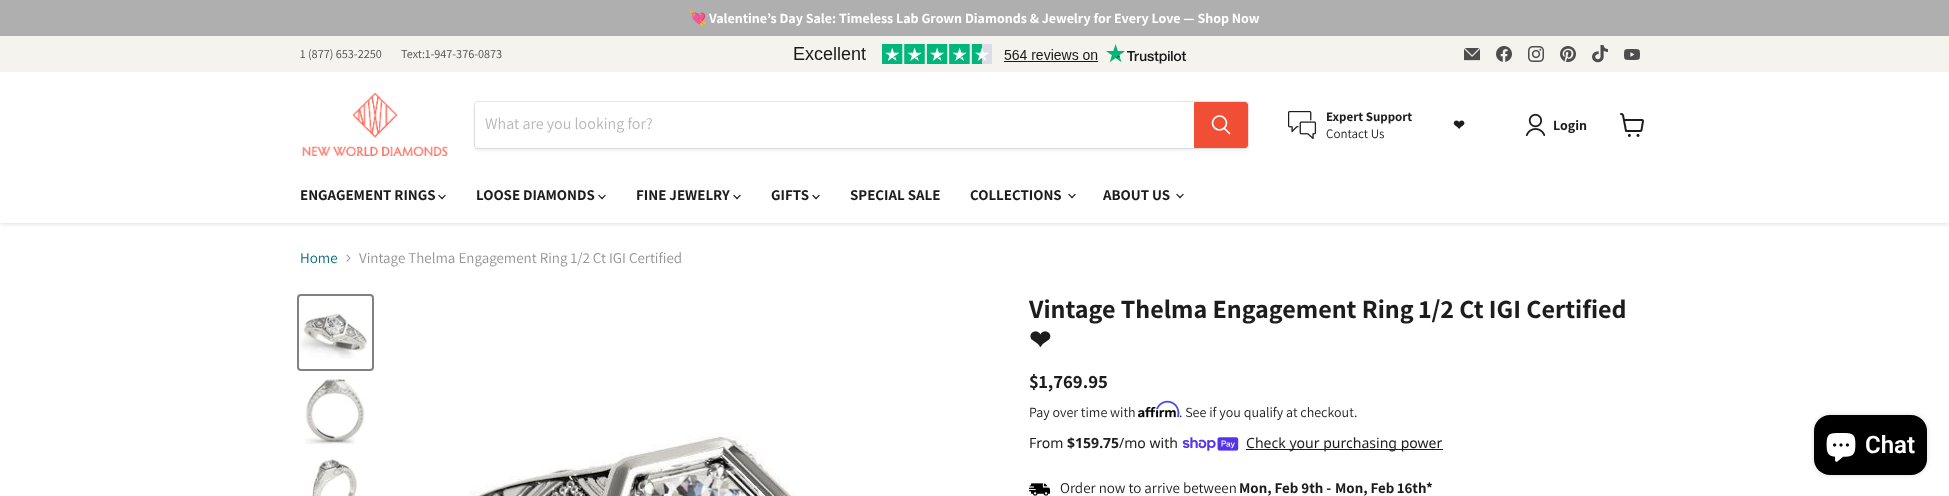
<svg xmlns="http://www.w3.org/2000/svg" width="1949" height="496" viewBox="0 0 1949 496">
  <defs>
    <clipPath id="clip1"><rect x="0" y="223" width="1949" height="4"/></clipPath>
  </defs>
  <rect width="100%" height="100%" fill="rgb(255,255,255)"/>
  <rect x="0" y="0" width="1949" height="36" fill="rgb(175,175,175)"/>
  <text x="689" y="23" font-family="Noto Color Emoji" font-size="14.05" font-weight="bold" fill="rgb(255,255,255)">💘</text>
  <text x="709" y="23" font-family="Assistant" font-size="14.05" font-weight="bold" fill="rgb(255,255,255)">Valentine’s Day Sale: Timeless Lab Grown Diamonds &amp; Jewelry for Every Love — Shop Now</text>
  <g clip-path="url(#clip1)">
    <rect x="0" y="74" width="1949" height="150" fill="rgba(128,128,128,0.25)" filter="blur(2px)"/>
  </g>
  <rect x="0" y="36" width="1949" height="36" fill="rgb(245,243,237)"/>
  <rect x="0" y="72" width="1949" height="1" fill="rgb(255,255,255)"/>
  <g font-family="Assistant" font-size="12.25" fill="rgb(77,77,77)">
    <text x="300" y="58">1 (877) 653-2250</text>
    <text x="401" y="58">Text:1-947-376-0873</text>
  </g>
  <image x="794" y="44" width="392" height="20" href="pic1.png"/>
  <image x="1464" y="48" width="16" height="13" href="pic2.png"/>
  <image x="1496" y="46" width="16" height="16" href="pic3.png"/>
  <image x="1528" y="46" width="16" height="16" href="pic4.png"/>
  <image x="1560" y="46" width="16" height="16" href="pic5.png"/>
  <image x="1592" y="45" width="16" height="18" href="pic6.png"/>
  <image x="1624" y="49" width="16" height="11" href="pic7.png"/>
  <image x="302" y="93" width="146" height="63" href="pic8.png"/>
  <rect x="474" y="103" width="775" height="48" rx="4" fill="rgba(128,128,128,0.11)" filter="blur(1.5px)"/>
  <rect x="474.5" y="101.5" width="774" height="47" rx="3.5" fill="none" stroke="rgba(128,128,128,0.2)"/>
  <path d="M478 102H1194V148H478C476.5 148 475 146.5 475 145V105C475 103.5 476.5 102 478 102Z" fill="rgb(255,255,255)"/>
  <text x="485" y="129" font-family="Assistant" font-size="16" fill="rgb(184,184,184)">What are you looking for?</text>
  <path d="M1194.5 102.5H1245C1246.5 102.5 1247.5 103.5 1247.5 105V145C1247.5 146.5 1246.5 147.5 1245 147.5H1194.5Z" fill="rgb(240,79,54)" stroke="rgb(240,79,54)"/>
  <path d="M1229.5 133.5L1224.5 128.5" fill="none" stroke="rgb(255,255,255)" stroke-width="1.7" stroke-linecap="round"/>
  <circle cx="1219.5" cy="123" r="7" fill="none" stroke="rgb(255,255,255)" stroke-width="1.7"/>
  <image x="1288" y="111" width="28" height="28" href="pic9.png"/>
  <text x="1326" y="121" font-family="Assistant" font-size="13" font-weight="bold" fill="rgb(29,29,29)">Expert Support</text>
  <text x="1326" y="138" font-family="Assistant" font-size="13" fill="rgb(29,29,29)">Contact Us</text>
  <text x="1453" y="130" font-family="DejaVu Sans" font-size="14.05" font-weight="bold" fill="rgb(29,29,29)">❤</text>
  <image x="1525" y="113" width="20" height="24" href="pic10.png"/>
  <text x="1553" y="130" font-family="Assistant" font-size="14.05" font-weight="bold" fill="rgb(29,29,29)">Login</text>
  <image x="1620" y="113" width="24" height="24" href="pic11.png"/>
  <text x="300" y="200" font-family="Assistant" font-size="15" font-weight="bold" fill="rgb(29,29,29)">ENGAGEMENT RINGS</text>
  <image x="438" y="194" width="8" height="6" href="pic12.png"/>
  <text x="476" y="200" font-family="Assistant" font-size="15" font-weight="bold" fill="rgb(29,29,29)">LOOSE DIAMONDS</text>
  <image x="598" y="194" width="8" height="6" href="pic12.png"/>
  <text x="636" y="200" font-family="Assistant" font-size="15" font-weight="bold" fill="rgb(29,29,29)">FINE JEWELRY</text>
  <image x="733" y="194" width="8" height="6" href="pic12.png"/>
  <text x="771" y="200" font-family="Assistant" font-size="15" font-weight="bold" fill="rgb(29,29,29)">GIFTS</text>
  <image x="812" y="194" width="8" height="6" href="pic12.png"/>
  <g font-family="Assistant" font-size="15" font-weight="bold" fill="rgb(29,29,29)">
    <text x="850" y="200">SPECIAL SALE</text>
    <text x="970" y="200">COLLECTIONS</text>
  </g>
  <image x="1068" y="193" width="8" height="6" href="pic12.png"/>
  <text x="1103" y="200" font-family="Assistant" font-size="15" font-weight="bold" fill="rgb(29,29,29)">ABOUT US</text>
  <image x="1176" y="193" width="8" height="6" href="pic12.png"/>
  <text x="300" y="263" font-family="Assistant" font-size="15" fill="rgb(4,110,130)">Home</text>
  <image x="346" y="254" width="5" height="8" href="pic13.png"/>
  <text x="359" y="263" font-family="Assistant" font-size="15" fill="rgb(148,148,148)">Vintage Thelma Engagement Ring 1/2 Ct IGI Certified</text>
  <rect x="298" y="295" width="75" height="75" rx="3" fill="none" stroke="rgb(129,129,129)" stroke-width="2"/>
  <image x="300" y="313" width="67" height="46" href="pic14.png"/>
  <image x="305" y="378" width="60" height="67" href="pic15.png"/>
  <image x="311" y="459" width="46" height="37" href="pic16.png"/>
  <image x="469" y="436" width="326" height="60" href="pic17.png"/>
  <text x="1029" y="318" font-family="Assistant" font-size="26.25" font-weight="bold" fill="rgb(29,29,29)">Vintage Thelma Engagement Ring 1/2 Ct IGI Certified</text>
  <text x="1029" y="349" font-family="DejaVu Sans" font-size="26.25" font-weight="bold" fill="rgb(29,29,29)">❤</text>
  <text x="1029" y="388" font-family="Assistant" font-size="18.75" font-weight="bold" fill="rgb(29,29,29)">$1,769.95</text>
  <text x="1029" y="417" font-family="Assistant" font-size="14" fill="rgb(29,29,29)">Pay over time with</text>
  <image x="1138" y="406" width="38" height="12" href="pic19.png"/>
  <image x="1156" y="400" width="24" height="18" href="pic18.png"/>
  <text x="1179" y="417" font-family="Assistant" font-size="14" fill="rgb(29,29,29)">. See if you qualify at checkout.</text>
  <text x="1029" y="448" font-family="Noto Sans" font-size="14.05" fill="rgb(29,29,29)">From</text>
  <text x="1067" y="448" font-family="Noto Sans" font-size="14.05" font-weight="bold" fill="rgb(29,29,29)">$159.75</text>
  <text x="1119" y="448" font-family="Noto Sans" font-size="14.05" fill="rgb(29,29,29)">/mo with</text>
  <image x="1182" y="437" width="57" height="14" href="pic20.png"/>
  <rect x="1246" y="449" width="197" height="1" fill="rgb(29,29,29)"/>
  <text x="1246" y="448" font-family="Noto Sans" font-size="14.05" fill="rgb(29,29,29)">Check your purchasing power</text>
  <image x="1029" y="483" width="21" height="13" href="pic21.png"/>
  <text x="1060" y="493" font-family="Assistant" font-size="15" fill="rgb(29,29,29)">Order now to arrive between</text>
  <g font-family="Assistant" font-size="15" font-weight="bold" fill="rgb(29,29,29)">
    <text x="1239" y="493">Mon, Feb 9th -</text>
    <text x="1335" y="493">Mon, Feb 16th</text>
    <text x="1426" y="493">*</text>
  </g>
  <rect x="1814" y="415" width="113" height="60" rx="16" fill="rgba(0,0,0,0.15)" filter="blur(2.5px)"/>
  <rect x="1814" y="415" width="113" height="60" rx="16" fill="rgb(0,0,0)"/>
  <image x="1826" y="433" width="30" height="29" href="pic22.png"/>
  <text x="1865" y="453" font-family="Roboto" font-size="24" font-weight="600" fill="rgb(255,255,255)">Chat</text>
</svg>
